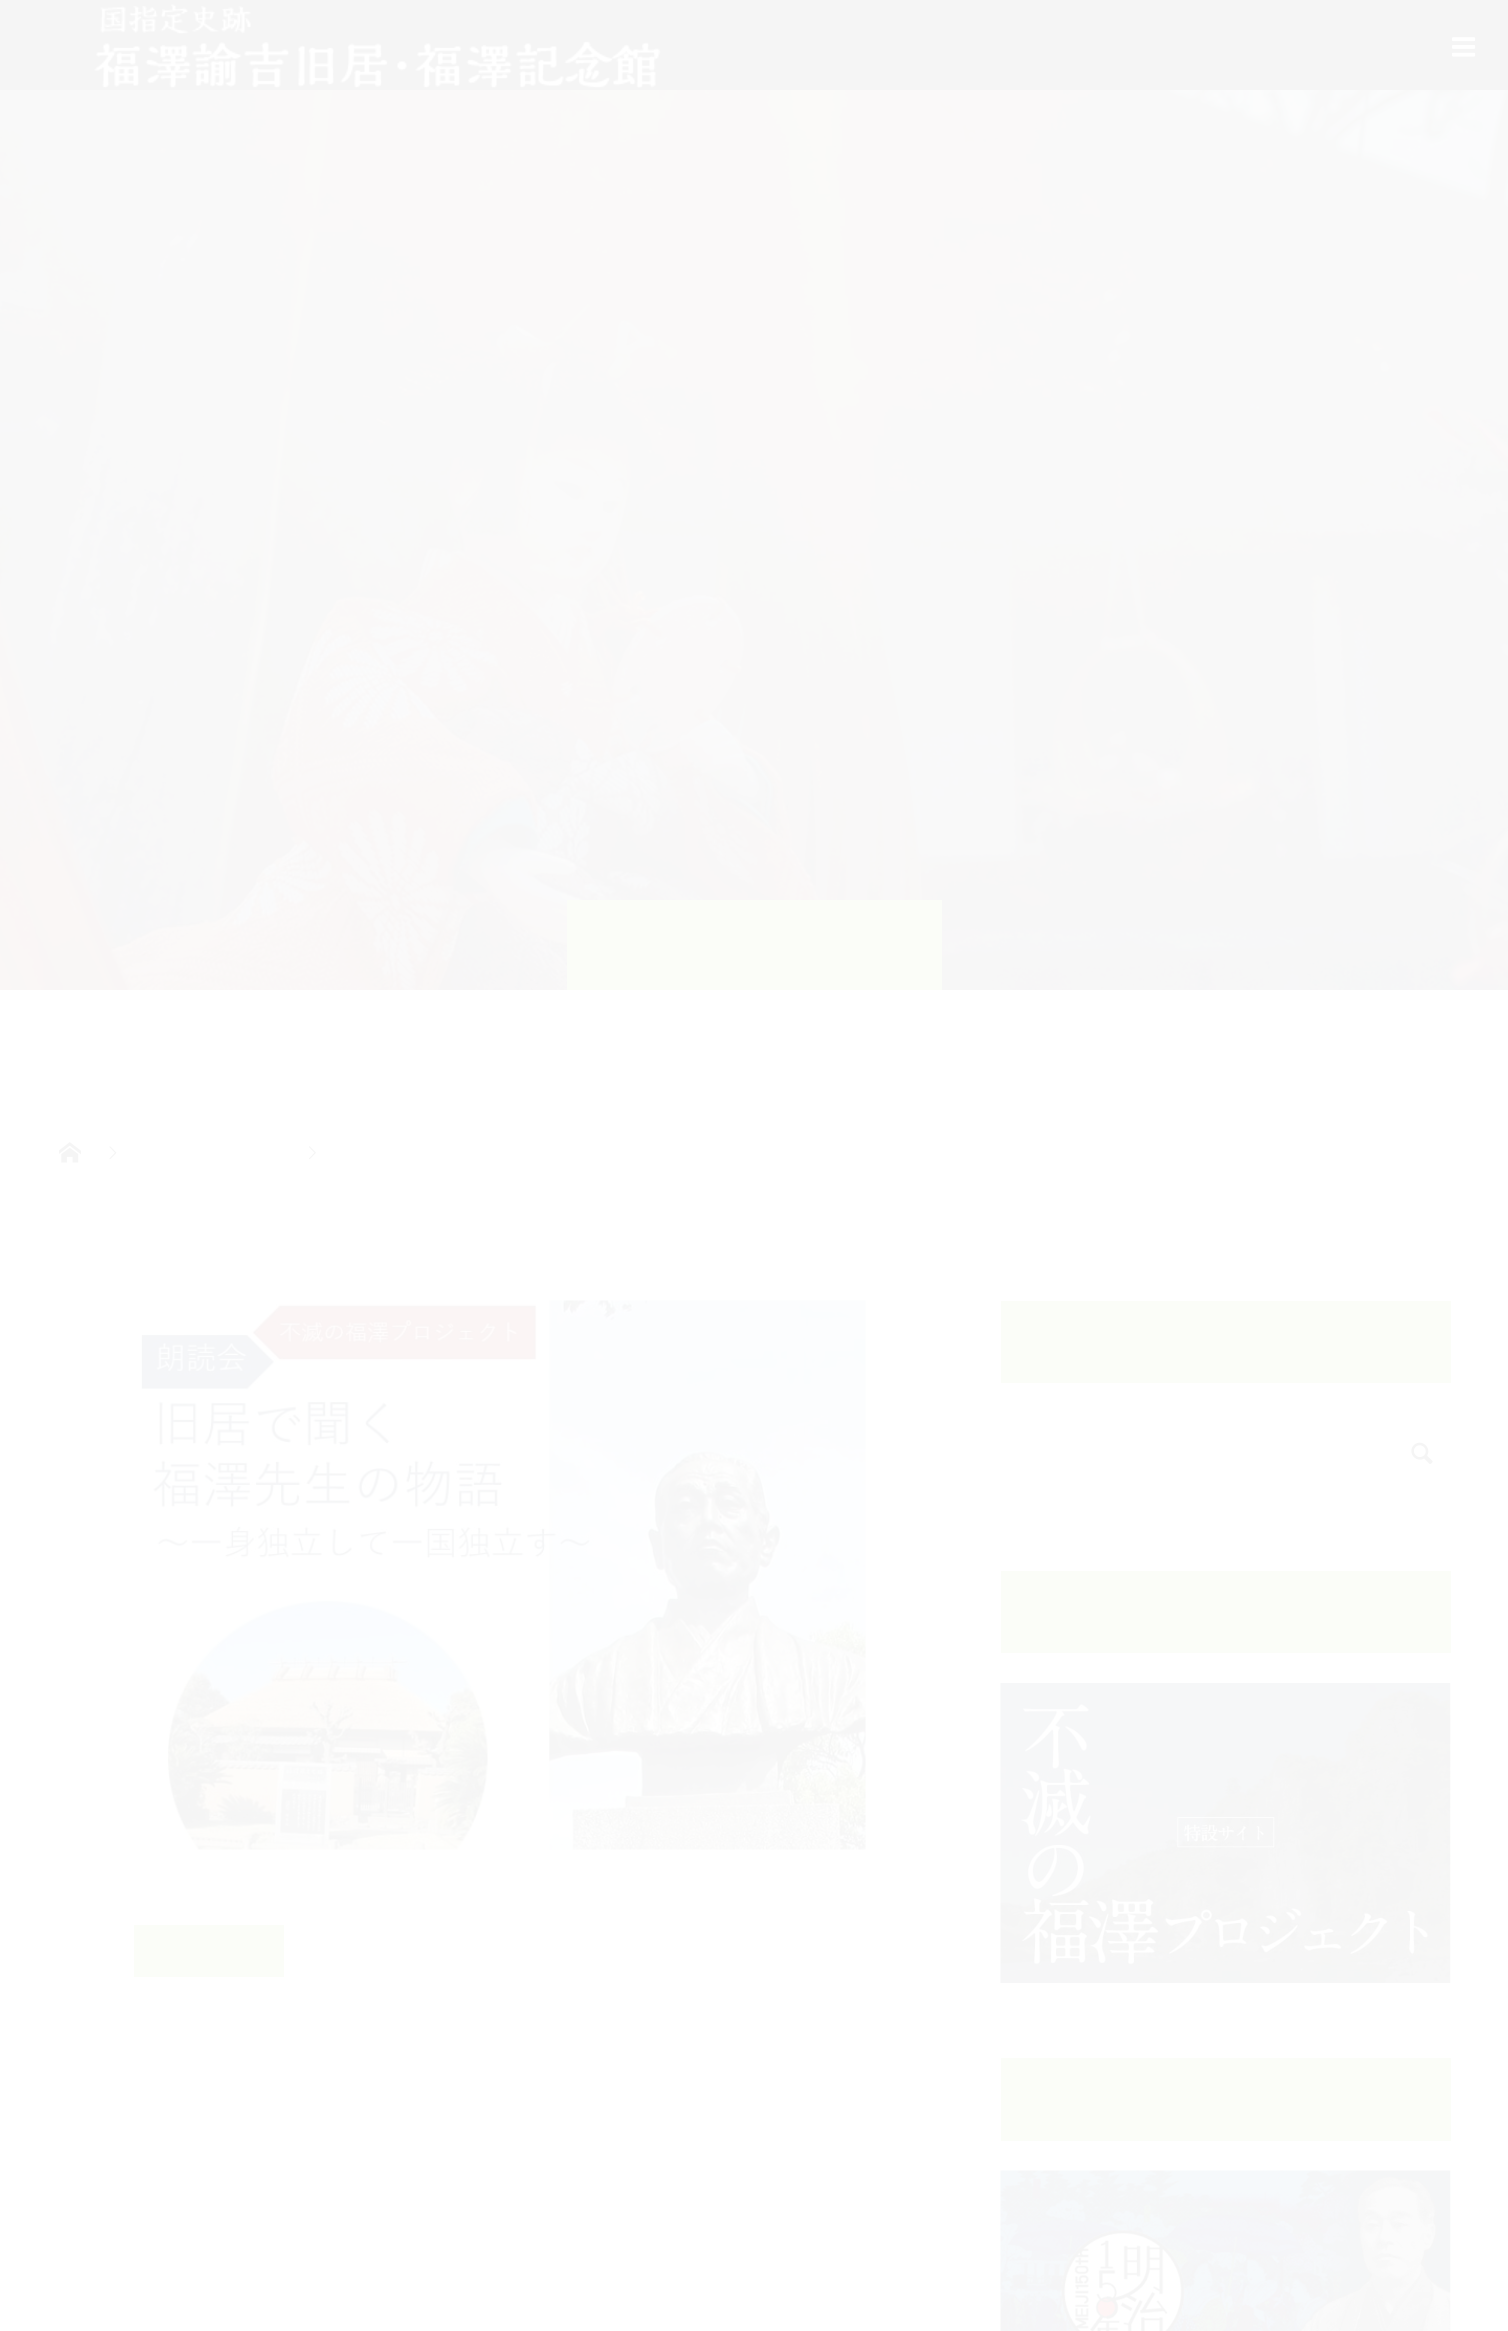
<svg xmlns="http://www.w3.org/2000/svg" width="1508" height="2331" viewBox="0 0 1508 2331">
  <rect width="100%" height="100%" fill="rgb(255,255,255)"/>
  <rect x="0" y="0" width="1508" height="90" fill="rgb(245,245,245)"/>
  <image x="94" y="4" width="567" height="85" href="pic1.png"/>
  <image x="1452" y="37" width="24" height="20" href="pic2.png"/>
  <image x="0" y="90" width="1508" height="900" href="pic3.png"/>
  <rect x="567" y="900" width="375" height="90" fill="rgb(251,253,248)"/>
  <image x="59" y="1142" width="22" height="21" href="pic4.png"/>
  <image x="109" y="1146" width="8" height="14" href="pic5.png"/>
  <image x="309" y="1146" width="7" height="14" href="pic6.png"/>
  <image x="133" y="1300" width="733" height="550" href="pic7.png"/>
  <rect x="134" y="1925" width="150" height="52" fill="rgb(251,253,248)"/>
  <rect x="1001" y="1301" width="450" height="82" fill="rgb(251,253,248)"/>
  <image x="1411" y="1442" width="22" height="22" href="pic8.png"/>
  <rect x="1001" y="1571" width="450" height="82" fill="rgb(251,253,248)"/>
  <image x="1000" y="1683" width="451" height="300" href="pic9.png"/>
  <rect x="1001" y="2058" width="450" height="83" fill="rgb(251,253,248)"/>
  <image x="1000" y="2170" width="451" height="161" href="pic10.png"/>
</svg>
